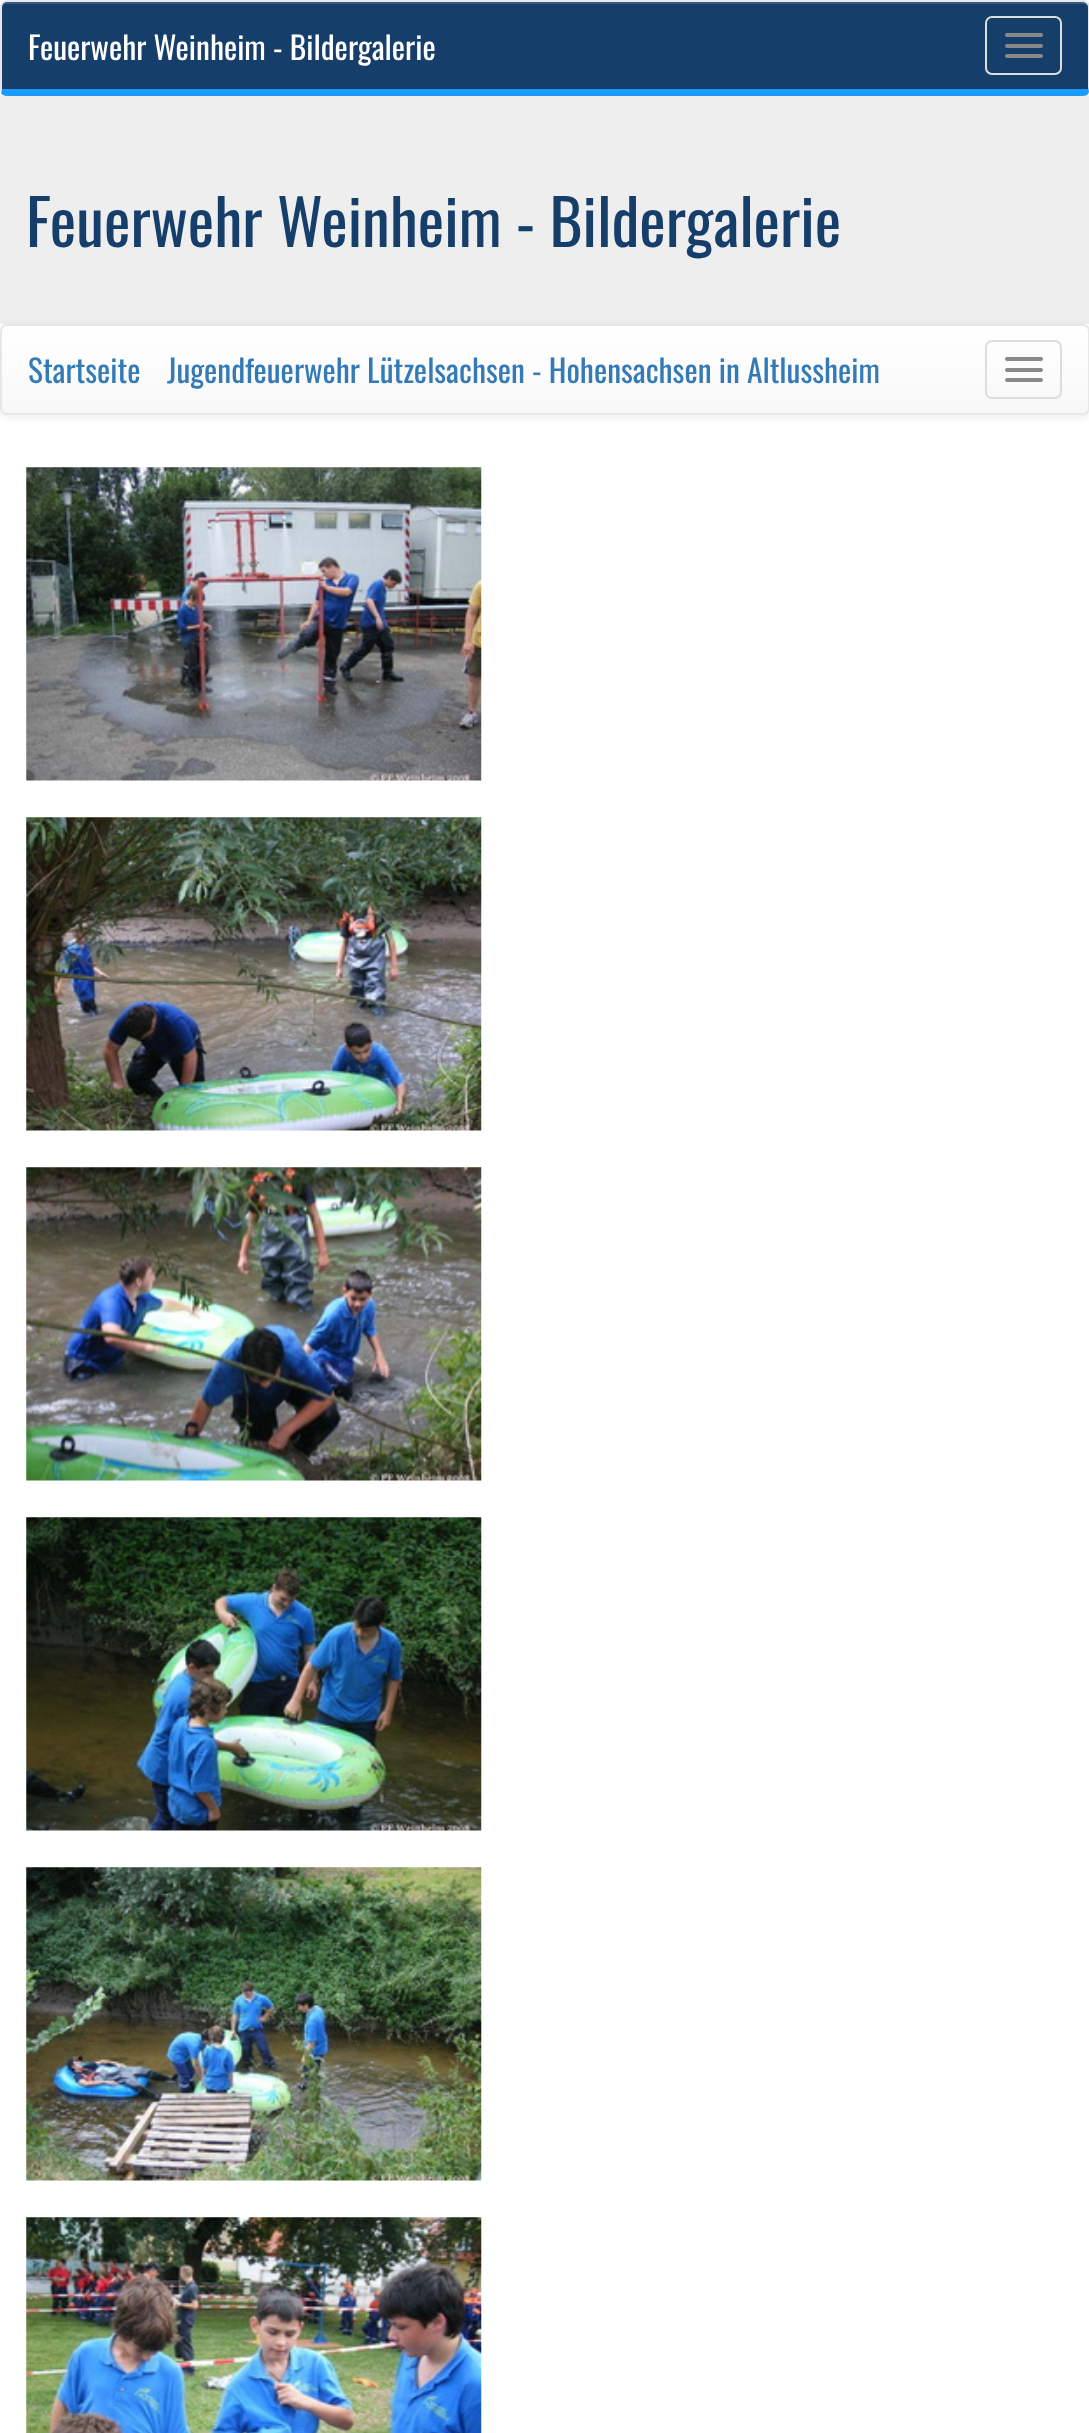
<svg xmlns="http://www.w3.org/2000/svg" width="1089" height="2433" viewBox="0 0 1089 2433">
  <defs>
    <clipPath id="clip1"><rect x="0" y="324" width="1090" height="91" rx="7"/></clipPath>
    <linearGradient id="g1" gradientUnits="userSpaceOnUse" x1="545" y1="325" x2="545" y2="413"><stop offset="0" stop-color="rgb(255,255,255)"/><stop offset="1" stop-color="rgb(248,248,248)"/></linearGradient>
  </defs>
  <rect width="100%" height="100%" fill="rgb(255,255,255)"/>
  <path d="M7 2H1083C1086 2 1088 4 1088 7V89H2V7C2 4 4 2 7 2Z" fill="rgb(22,62,106)"/>
  <path d="M7 4H1083C1086 4 1088 6 1088 9V89V7C1088 4 1086 2 1083 2H7C4 2 2 4 2 7V89V9C2 6 4 4 7 4Z" fill="rgba(255,255,255,0.15)"/>
  <path d="M7 0C5 0 3 1 2 2L3 3C4 2 6 2 7 2H1083C1085 2 1086 3 1087 4L1088 2C1087 1 1085 0 1083 0Z" fill="rgb(231,231,231)"/>
  <path d="M1088 2C1089 3 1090 5 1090 7V89L1089 92L1088 87V7C1088 6 1088 4 1087 4Z" fill="rgb(231,231,231)"/>
  <path d="M1089 92C1088 95 1086 96 1083 96H7C4 96 2 95 1 93L2 88V89H1088V87Z" fill="rgb(27,155,255)"/>
  <path d="M0 7V89L1 93L2 88V7C2 6 2 4 3 3L2 2C1 3 0 5 0 7Z" fill="rgb(231,231,231)"/>
  <text x="28" y="60" font-family="Oswald" font-size="31.5" fill="rgb(255,255,255)">Feuerwehr Weinheim - Bildergalerie</text>
  <rect x="986" y="17" width="75" height="57" rx="6" fill="none" stroke="rgb(221,221,221)" stroke-width="2"/>
  <rect x="1005" y="33" width="38" height="4" rx="2" fill="rgb(136,136,136)"/>
  <rect x="1005" y="44" width="38" height="4" rx="2" fill="rgb(136,136,136)"/>
  <rect x="1005" y="54" width="38" height="4" rx="2" fill="rgb(136,136,136)"/>
  <rect x="0" y="96" width="1089" height="228" fill="rgb(238,238,238)"/>
  <text x="26" y="247" font-family="Oswald" font-size="63" fill="rgb(22,62,106)">Feuerwehr Weinheim - Bildergalerie</text>
  <rect x="0" y="326" width="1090" height="91" rx="7" fill="rgba(0,0,0,0.07)" filter="blur(4.5px)"/>
  <g clip-path="url(#clip1)">
    <rect x="0" y="326" width="1089" height="87" fill="url(#g1)"/>
  </g>
  <rect x="1" y="325" width="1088" height="89" rx="6" fill="none" stroke="rgb(231,231,231)" stroke-width="2"/>
  <g font-family="Oswald" font-size="31.5" fill="rgb(51,122,183)">
    <text x="28" y="383">Startseite</text>
    <text x="167" y="383">Jugendfeuerwehr Lützelsachsen - Hohensachsen in Altlussheim</text>
  </g>
  <rect x="986" y="341" width="75" height="57" rx="6" fill="none" stroke="rgb(221,221,221)" stroke-width="2"/>
  <rect x="1005" y="357" width="38" height="4" rx="2" fill="rgb(136,136,136)"/>
  <rect x="1005" y="368" width="38" height="4" rx="2" fill="rgb(136,136,136)"/>
  <rect x="1005" y="378" width="38" height="4" rx="2" fill="rgb(136,136,136)"/>
  <image x="26" y="467" width="456" height="314" href="pic1.png"/>
  <image x="26" y="817" width="456" height="314" href="pic2.png"/>
  <image x="26" y="1167" width="456" height="314" href="pic3.png"/>
  <image x="26" y="1517" width="456" height="314" href="pic4.png"/>
  <image x="26" y="1867" width="456" height="314" href="pic5.png"/>
  <image x="26" y="2217" width="456" height="216" href="pic6.png"/>
</svg>
